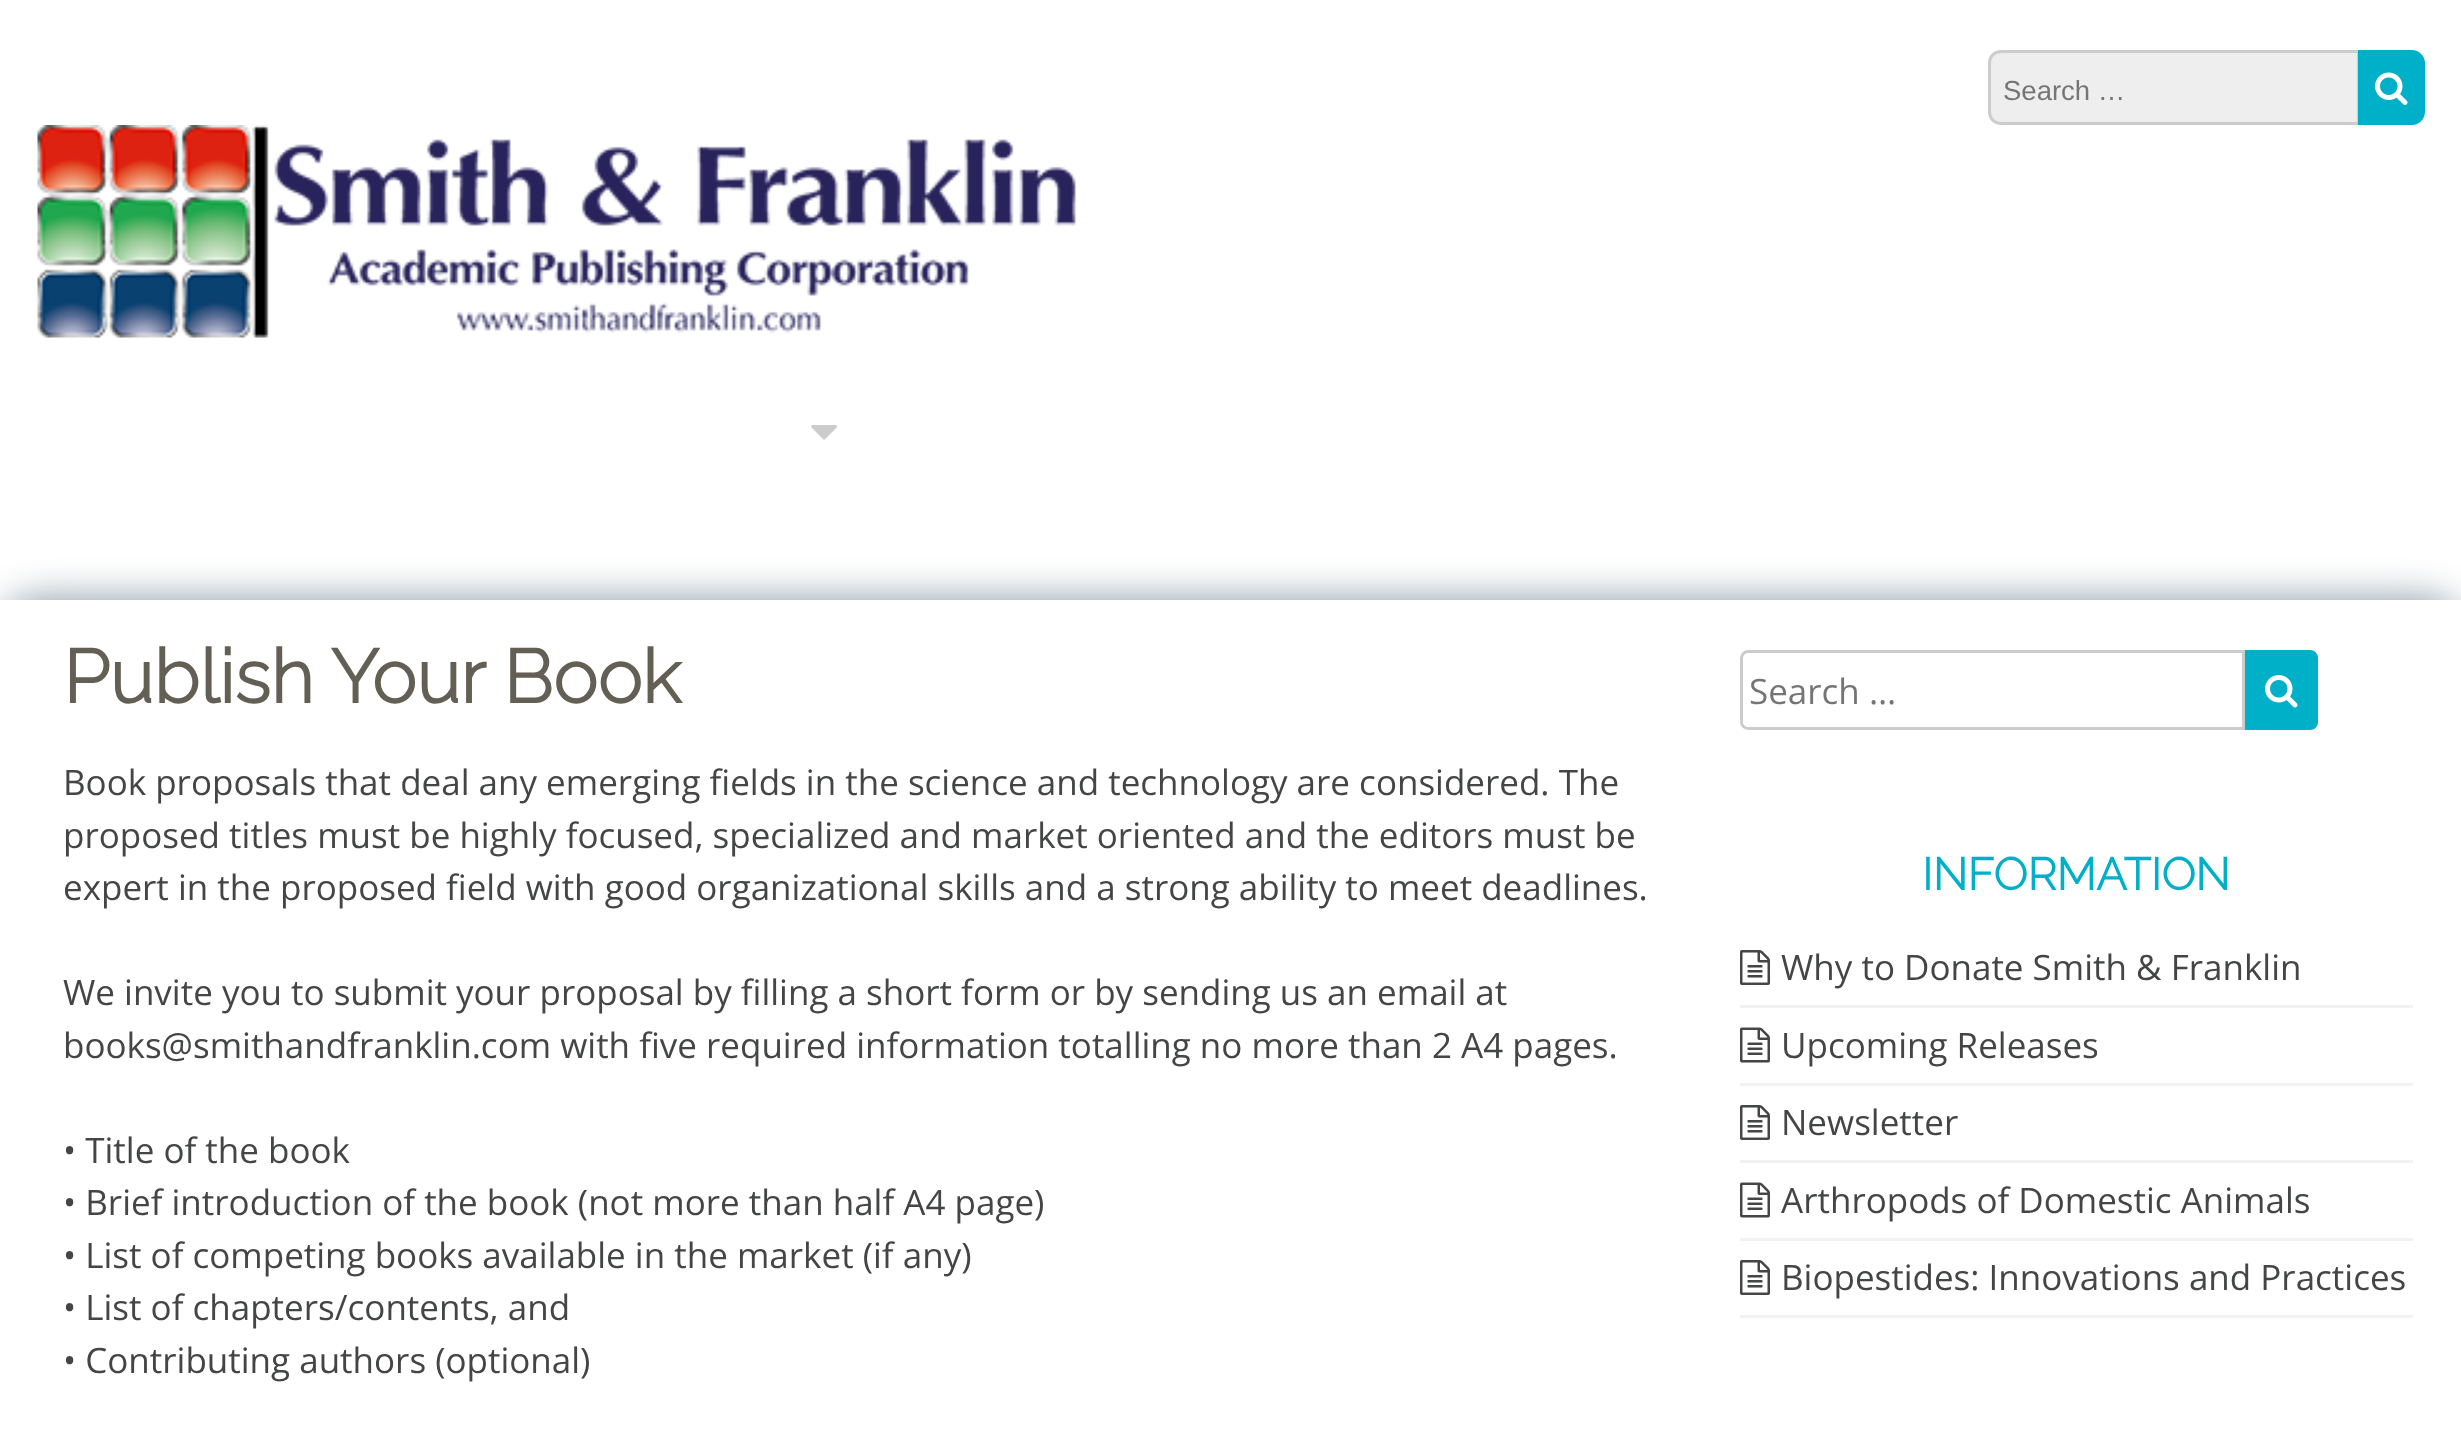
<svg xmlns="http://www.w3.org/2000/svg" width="2461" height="1432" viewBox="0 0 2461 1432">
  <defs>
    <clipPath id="clip1"><rect x="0" y="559" width="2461" height="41"/></clipPath>
  </defs>
  <rect width="100%" height="100%" fill="rgb(255,255,255)"/>
  <path d="M2001 51.5H2358.5V123.5H2001C1994.5 123.5 1989.5 118.5 1989.5 112V63C1989.5 56.5 1994.5 51.5 2001 51.5Z" fill="rgb(238,238,238)" stroke="rgb(204,204,204)" stroke-width="3"/>
  <text x="2003" y="100" font-family="Liberation Sans" font-size="27.5" fill="rgb(117,117,117)">Search …</text>
  <path d="M2358 50H2412C2419 50 2425 56 2425 63V112C2425 119 2419 125 2412 125H2358Z" fill="rgb(0,176,200)"/>
  <image x="2375" y="72" width="33" height="33" href="pic1.png"/>
  <image x="37" y="125" width="1039" height="213" href="pic2.png"/>
  <image x="811" y="425" width="26" height="15" href="pic3.png"/>
  <g clip-path="url(#clip1)">
    <rect x="0" y="600" width="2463" height="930" rx="38" fill="rgb(133,150,159)" filter="blur(20px)"/>
  </g>
  <text x="63" y="703" font-family="Raleway" font-size="75" font-weight="bold" fill="rgb(100,95,84)">Publish Your Book</text>
  <g font-family="Open Sans" font-size="35" fill="rgb(68,69,69)">
    <text>
      <tspan x="63" y="795">Book proposals that deal any emerging fields in the science and technology are considered. The</tspan>
      <tspan x="63" y="848">proposed titles must be highly focused, specialized and market oriented and the editors must be</tspan>
      <tspan x="63" y="900">expert in the proposed field with good organizational skills and a strong ability to meet deadlines.</tspan>
    </text>
    <text>
      <tspan x="63" y="1005">We invite you to submit your proposal by filling a short form or by sending us an email at</tspan>
      <tspan x="63" y="1058">books@smithandfranklin.com with five required information totalling no more than 2 A4 pages.</tspan>
    </text>
    <text>
      <tspan x="63" y="1163">• Title of the book</tspan>
      <tspan x="63" y="1215">• Brief introduction of the book (not more than half A4 page)</tspan>
      <tspan x="63" y="1268">• List of competing books available in the market (if any)</tspan>
      <tspan x="63" y="1320">• List of chapters/contents, and</tspan>
      <tspan x="63" y="1373">• Contributing authors (optional)</tspan>
    </text>
  </g>
  <path d="M1748 651.5H2243.5V728.5H1748C1744.5 728.5 1741.5 725.5 1741.5 722V658C1741.5 654.5 1744.5 651.5 1748 651.5Z" fill="none" stroke="rgb(204,204,204)" stroke-width="3"/>
  <text x="1749" y="704" font-family="Open Sans" font-size="35" fill="rgb(117,117,117)">Search …</text>
  <path d="M2245 650H2310C2314.5 650 2318 653.5 2318 658V722C2318 726.5 2314.5 730 2310 730H2245Z" fill="rgb(0,176,200)"/>
  <image x="2265" y="675" width="33" height="33" href="pic4.png"/>
  <text x="1922" y="890" font-family="Raleway" font-size="45" font-weight="bold" fill="rgb(0,176,200)">INFORMATION</text>
  <rect x="1740" y="1005" width="673" height="3" fill="rgb(242,242,242)"/>
  <image x="1740" y="950" width="30" height="35" href="pic5.png"/>
  <text x="1781" y="980" font-family="Open Sans" font-size="35" fill="rgb(68,69,69)">Why to Donate Smith &amp; Franklin</text>
  <rect x="1740" y="1083" width="673" height="3" fill="rgb(242,242,242)"/>
  <image x="1740" y="1027" width="30" height="36" href="pic6.png"/>
  <text x="1781" y="1058" font-family="Open Sans" font-size="35" fill="rgb(68,69,69)">Upcoming Releases</text>
  <rect x="1740" y="1160" width="673" height="3" fill="rgb(242,242,242)"/>
  <image x="1740" y="1105" width="30" height="35" href="pic5.png"/>
  <text x="1781" y="1135" font-family="Open Sans" font-size="35" fill="rgb(68,69,69)">Newsletter</text>
  <rect x="1740" y="1238" width="673" height="3" fill="rgb(242,242,242)"/>
  <image x="1740" y="1182" width="30" height="36" href="pic6.png"/>
  <text x="1781" y="1213" font-family="Open Sans" font-size="35" fill="rgb(68,69,69)">Arthropods of Domestic Animals</text>
  <rect x="1740" y="1315" width="673" height="3" fill="rgb(242,242,242)"/>
  <image x="1740" y="1260" width="30" height="35" href="pic5.png"/>
  <text x="1781" y="1290" font-family="Open Sans" font-size="35" fill="rgb(68,69,69)">Biopestides: Innovations and Practices</text>
</svg>
